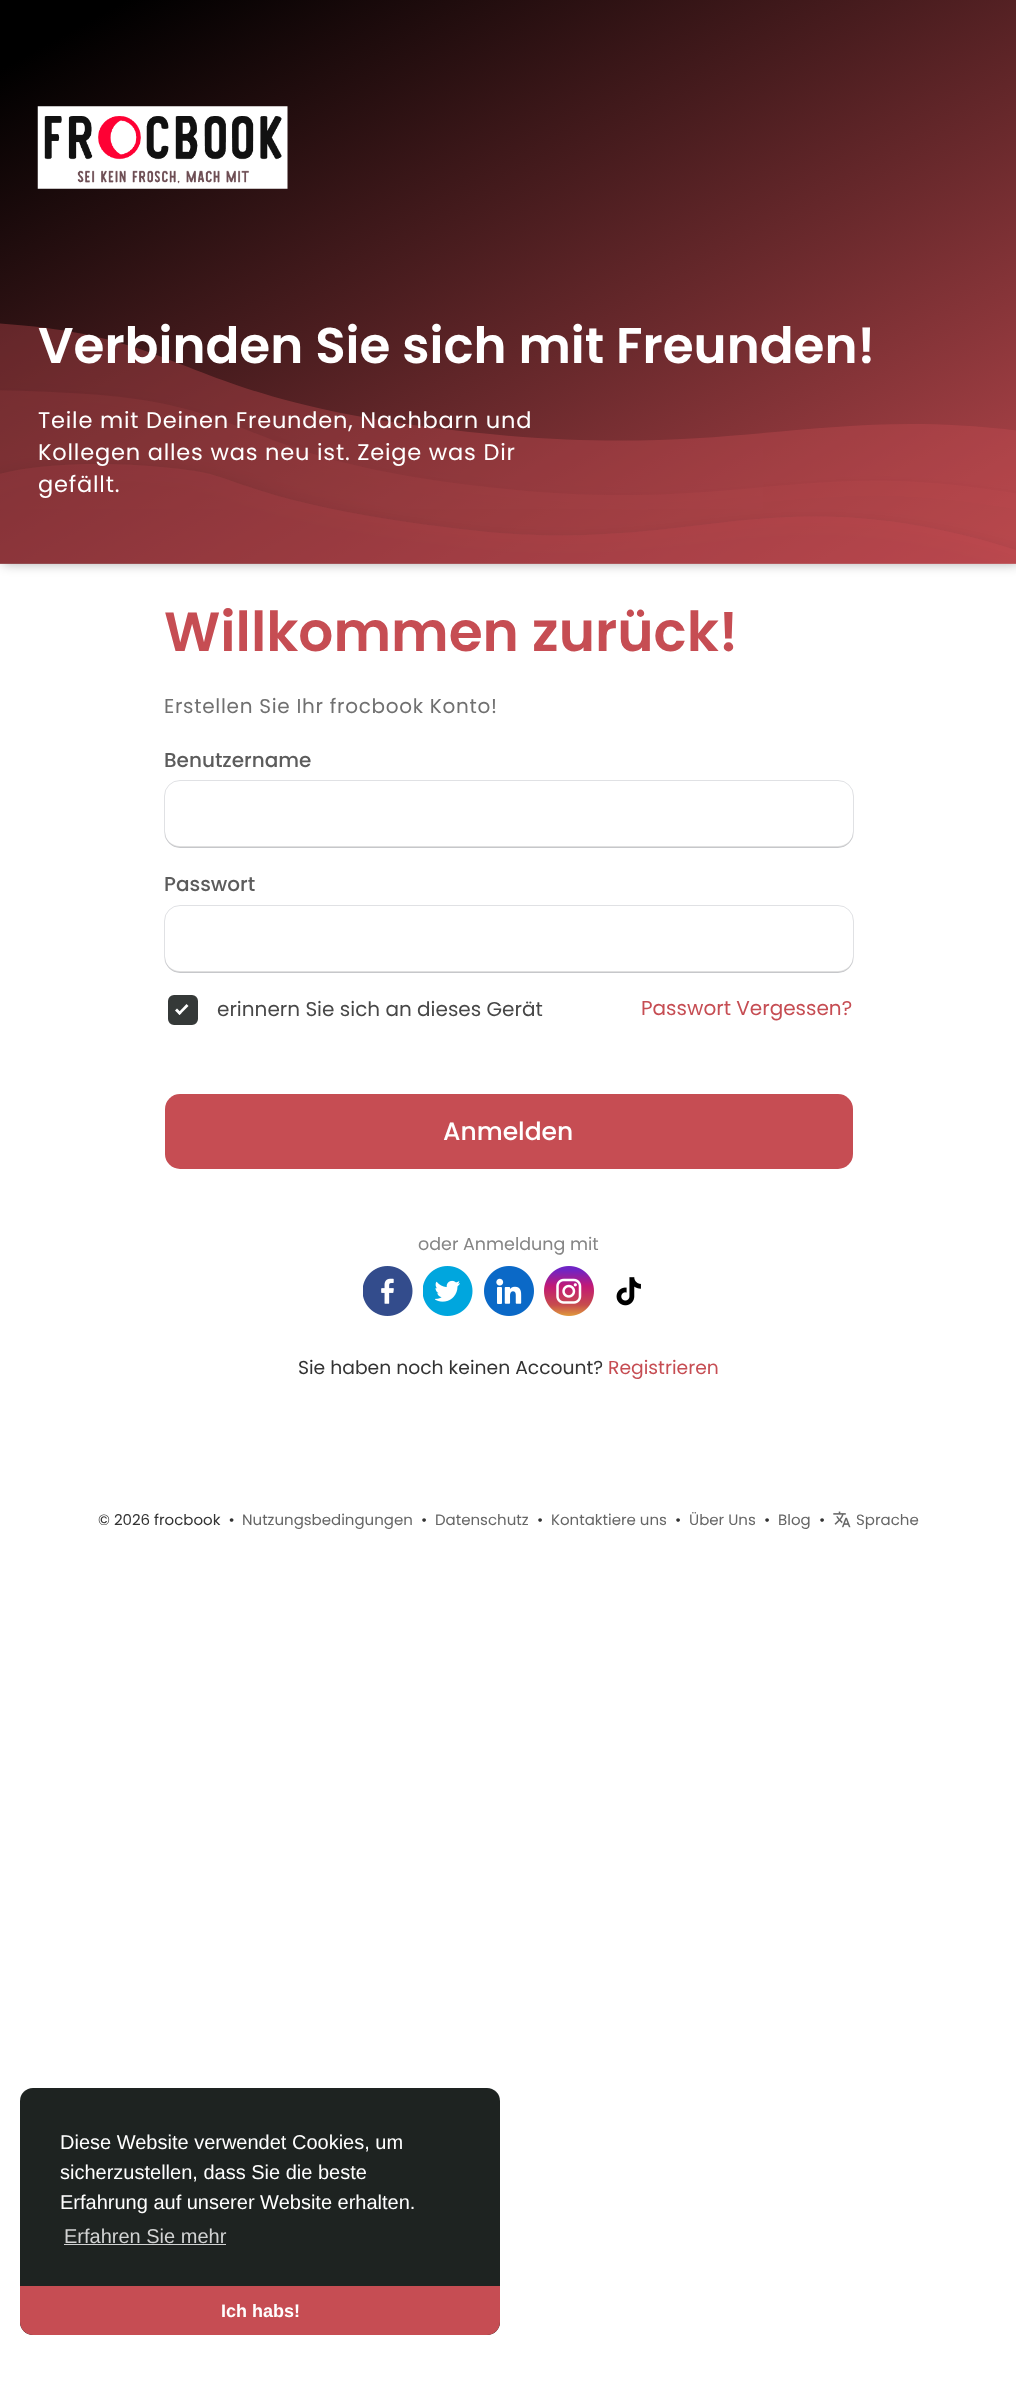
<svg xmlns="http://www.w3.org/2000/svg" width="1016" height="2385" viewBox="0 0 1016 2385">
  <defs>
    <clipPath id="clip1"><path d="M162 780H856V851H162ZM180 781H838C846.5 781 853 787.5 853 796V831C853 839.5 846.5 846 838 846H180C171.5 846 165 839.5 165 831V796C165 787.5 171.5 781 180 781Z" clip-rule="evenodd"/></clipPath>
    <clipPath id="clip2"><path d="M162 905H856V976H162ZM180 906H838C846.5 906 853 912.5 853 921V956C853 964.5 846.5 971 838 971H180C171.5 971 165 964.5 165 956V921C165 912.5 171.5 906 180 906Z" clip-rule="evenodd"/></clipPath>
  </defs>
  <rect width="100%" height="100%" fill="rgb(255,255,255)"/>
  <rect x="3" y="0" width="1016" height="564" fill="rgba(0,0,0,0.3)" filter="blur(6px)"/>
  <image x="0" y="0" width="1016" height="564" href="pic1.png"/>
  <image x="37" y="106" width="251" height="83" href="pic2.png"/>
  <text x="38" y="363" font-family="Poppins" font-size="50" font-weight="600" fill="rgb(255,255,255)">Verbinden Sie sich mit Freunden!</text>
  <g font-family="Poppins" font-size="22.5" letter-spacing="0.8" fill="rgb(255,255,255)">
    <text>
      <tspan x="38" y="428">Teile mit Deinen Freunden, Nachbarn und</tspan>
      <tspan x="38" y="460">Kollegen alles was neu ist. Zeige was Dir</tspan>
      <tspan x="38" y="492">gefällt.</tspan>
    </text>
  </g>
  <text x="164" y="651" font-family="Poppins" font-size="55" font-weight="600" fill="rgb(198,77,83)">Willkommen zurück!</text>
  <text x="164" y="713" font-family="Poppins" font-size="20" letter-spacing="0.7" fill="rgb(112,112,112)">Erstellen Sie Ihr frocbook Konto!</text>
  <text x="164" y="767" font-family="Poppins" font-size="20" font-weight="500" fill="rgb(92,92,92)">Benutzername</text>
  <g clip-path="url(#clip1)">
    <rect x="165" y="783" width="688" height="65" rx="15" fill="rgba(0,0,0,0.12)" filter="blur(0.5px)"/>
  </g>
  <rect x="164.5" y="780.5" width="689" height="67" rx="15.5" fill="none" stroke="rgba(60,66,87,0.16)"/>
  <text x="164" y="891" font-family="Poppins" font-size="20" font-weight="500" fill="rgb(92,92,92)">Passwort</text>
  <g clip-path="url(#clip2)">
    <rect x="165" y="908" width="688" height="65" rx="15" fill="rgba(0,0,0,0.12)" filter="blur(0.5px)"/>
  </g>
  <rect x="164.5" y="905.5" width="689" height="67" rx="15.5" fill="none" stroke="rgba(60,66,87,0.16)"/>
  <rect x="169.5" y="996.5" width="27" height="27" rx="4.5" fill="rgb(53,57,56)" stroke="rgb(53,57,56)" stroke-width="3"/>
  <text x="217" y="1016" font-family="Poppins" font-size="20" fill="rgb(71,71,71)">erinnern Sie sich an dieses Gerät</text>
  <path d="M178 1013L186.5 1004L188.5 1006L179.5 1015Z" fill="rgb(255,255,255)"/>
  <path d="M175 1010.5L177 1008.5L181.5 1013L179.5 1015Z" fill="rgb(255,255,255)"/>
  <text x="641" y="1015" font-family="Poppins" font-size="20" fill="rgb(198,77,83)">Passwort Vergessen?</text>
  <rect x="165" y="1094" width="688" height="75" rx="15" fill="rgb(198,77,83)"/>
  <text x="443" y="1140" font-family="Poppins" font-size="25" font-weight="500" fill="rgb(255,255,255)">Anmelden</text>
  <text x="418" y="1250" font-family="Poppins" font-size="17.5" fill="rgb(133,133,133)">oder Anmeldung mit</text>
  <image x="363" y="1266" width="50" height="50" href="pic3.png"/>
  <image x="423" y="1266" width="50" height="50" href="pic4.png"/>
  <image x="484" y="1266" width="50" height="50" href="pic5.png"/>
  <image x="544" y="1266" width="50" height="50" href="pic6.png"/>
  <image x="616" y="1277" width="25" height="29" href="pic7.png"/>
  <text x="298" y="1374" font-family="Poppins" font-size="18.75" fill="rgb(51,51,51)">Sie haben noch keinen Account?</text>
  <text x="608" y="1374" font-family="Poppins" font-size="18.75" fill="rgb(198,77,83)">Registrieren</text>
  <text x="98" y="1525" font-family="Poppins" font-size="15" fill="rgb(51,51,51)" xml:space="preserve">© 2026 frocbook  •</text>
  <text x="242" y="1525" font-family="Poppins" font-size="15" fill="rgb(102,102,102)">Nutzungsbedingungen</text>
  <text x="421" y="1525" font-family="Poppins" font-size="15" fill="rgb(51,51,51)">•</text>
  <text x="435" y="1525" font-family="Poppins" font-size="15" fill="rgb(102,102,102)">Datenschutz</text>
  <text x="537" y="1525" font-family="Poppins" font-size="15" fill="rgb(51,51,51)">•</text>
  <text x="551" y="1525" font-family="Poppins" font-size="15" fill="rgb(102,102,102)">Kontaktiere uns</text>
  <text x="675" y="1525" font-family="Poppins" font-size="15" fill="rgb(51,51,51)">•</text>
  <text x="689" y="1525" font-family="Poppins" font-size="15" fill="rgb(102,102,102)">Über Uns</text>
  <text x="764" y="1525" font-family="Poppins" font-size="15" fill="rgb(51,51,51)">•</text>
  <text x="778" y="1525" font-family="Poppins" font-size="15" fill="rgb(102,102,102)">Blog</text>
  <text x="819" y="1525" font-family="Poppins" font-size="15" fill="rgb(51,51,51)">•</text>
  <image x="833" y="1511" width="18" height="17" href="pic8.png"/>
  <text x="856" y="1525" font-family="Poppins" font-size="15" fill="rgb(102,102,102)">Sprache</text>
  <rect x="20" y="2088" width="480" height="247" rx="13" fill="rgb(30,35,33)"/>
  <g font-family="Liberation Sans" font-size="20" fill="rgb(255,255,255)">
    <text>
      <tspan x="60" y="2149">Diese Website verwendet Cookies, um</tspan>
      <tspan x="60" y="2179">sicherzustellen, dass Sie die beste</tspan>
      <tspan x="60" y="2209">Erfahrung auf unserer Website erhalten.</tspan>
    </text>
  </g>
  <text x="64" y="2243" font-family="Liberation Sans" font-size="20" fill="rgb(210,211,211)">Erfahren Sie mehr</text>
  <rect x="64" y="2244" width="162" height="1" fill="rgb(210,211,211)"/>
  <path d="M20 2286H500V2322C500 2329 494 2335 487 2335H33C26 2335 20 2329 20 2322Z" fill="rgb(198,77,83)"/>
  <text x="221" y="2317" font-family="Liberation Sans" font-size="18" font-weight="bold" fill="rgb(255,255,255)">Ich habs!</text>
</svg>
